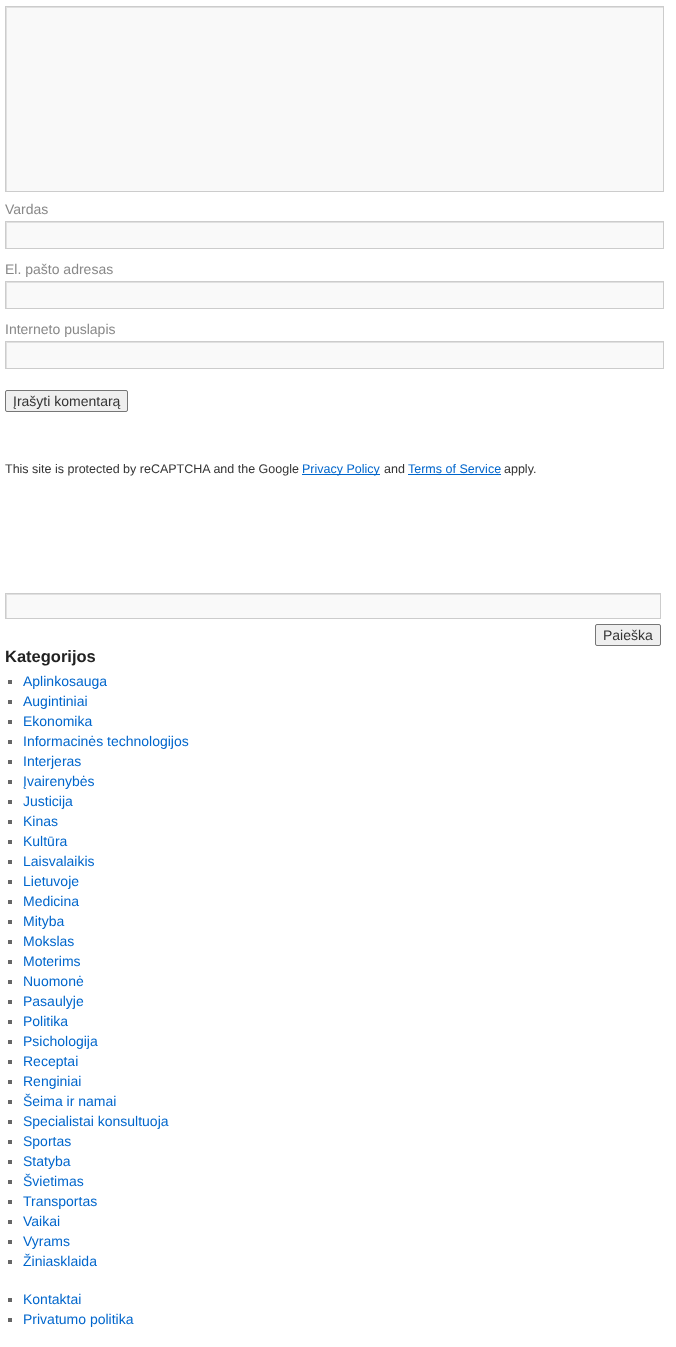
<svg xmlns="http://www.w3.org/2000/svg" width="676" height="1347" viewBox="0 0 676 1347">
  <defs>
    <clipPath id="clip1"><rect x="6" y="7" width="657" height="184"/></clipPath>
    <clipPath id="clip2"><rect x="6" y="222" width="657" height="26"/></clipPath>
    <clipPath id="clip3"><rect x="6" y="282" width="657" height="26"/></clipPath>
    <clipPath id="clip4"><rect x="6" y="342" width="657" height="26"/></clipPath>
    <clipPath id="clip5"><rect x="6" y="594" width="654" height="24"/></clipPath>
  </defs>
  <rect width="100%" height="100%" fill="rgb(255,255,255)"/>
  <rect x="7" y="8" width="656" height="183" fill="rgb(249,249,249)"/>
  <g clip-path="url(#clip1)">
    <path d="M-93-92H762V290H-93ZM7 8H664V192H7Z" fill="rgb(224,224,224)" fill-rule="evenodd"/>
  </g>
  <rect x="5.5" y="6.5" width="658" height="185" fill="none" stroke="rgb(204,204,204)"/>
  <text x="5" y="214" font-family="Liberation Sans" font-size="14" fill="rgb(136,136,136)">Vardas</text>
  <rect x="7" y="223" width="656" height="25" fill="rgb(249,249,249)"/>
  <g clip-path="url(#clip2)">
    <path d="M-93 123H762V347H-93ZM7 223H664V249H7Z" fill="rgb(224,224,224)" fill-rule="evenodd"/>
  </g>
  <rect x="5.5" y="221.5" width="658" height="27" fill="none" stroke="rgb(204,204,204)"/>
  <text x="5" y="274" font-family="Liberation Sans" font-size="14" fill="rgb(136,136,136)">El. pašto adresas</text>
  <rect x="7" y="283" width="656" height="25" fill="rgb(249,249,249)"/>
  <g clip-path="url(#clip3)">
    <path d="M-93 183H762V407H-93ZM7 283H664V309H7Z" fill="rgb(224,224,224)" fill-rule="evenodd"/>
  </g>
  <rect x="5.5" y="281.5" width="658" height="27" fill="none" stroke="rgb(204,204,204)"/>
  <text x="5" y="334" font-family="Liberation Sans" font-size="14" fill="rgb(136,136,136)">Interneto puslapis</text>
  <rect x="7" y="343" width="656" height="25" fill="rgb(249,249,249)"/>
  <g clip-path="url(#clip4)">
    <path d="M-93 243H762V467H-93ZM7 343H664V369H7Z" fill="rgb(224,224,224)" fill-rule="evenodd"/>
  </g>
  <rect x="5.5" y="341.5" width="658" height="27" fill="none" stroke="rgb(204,204,204)"/>
  <rect x="5.5" y="390.5" width="122" height="21" rx="1.5" fill="rgb(239,239,239)" stroke="rgb(118,118,118)"/>
  <text x="13" y="406" font-family="Liberation Sans" font-size="14" fill="rgb(51,51,51)">Įrašyti komentarą</text>
  <text x="5" y="473" font-family="Liberation Sans" font-size="12.5" fill="rgb(51,51,51)">This site is protected by reCAPTCHA and the Google</text>
  <rect x="302" y="474" width="78" height="1" fill="rgb(0,102,204)"/>
  <text x="302" y="473" font-family="Liberation Sans" font-size="12.5" fill="rgb(0,102,204)">Privacy Policy</text>
  <text x="384" y="473" font-family="Liberation Sans" font-size="12.5" fill="rgb(51,51,51)">and</text>
  <text x="408" y="473" font-family="Liberation Sans" font-size="12.5" fill="rgb(0,102,204)">Terms of Service</text>
  <rect x="408" y="474" width="93" height="1" fill="rgb(0,102,204)"/>
  <text x="504" y="473" font-family="Liberation Sans" font-size="12.5" fill="rgb(51,51,51)">apply.</text>
  <rect x="7" y="595" width="653" height="23" fill="rgb(249,249,249)"/>
  <g clip-path="url(#clip5)">
    <path d="M-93 495H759V717H-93ZM7 595H661V619H7Z" fill="rgb(224,224,224)" fill-rule="evenodd"/>
  </g>
  <rect x="5.5" y="593.5" width="655" height="25" fill="none" stroke="rgb(204,204,204)"/>
  <rect x="595.5" y="624.5" width="65" height="21" rx="1.5" fill="rgb(239,239,239)" stroke="rgb(118,118,118)"/>
  <text x="603" y="640" font-family="Liberation Sans" font-size="14" fill="rgb(51,51,51)">Paieška</text>
  <text x="5" y="662" font-family="Liberation Sans" font-size="16.5" font-weight="bold" fill="rgb(34,34,34)">Kategorijos</text>
  <rect x="8" y="680" width="4" height="4" fill="rgb(102,102,102)"/>
  <text x="23" y="686" font-family="Liberation Sans" font-size="14" fill="rgb(0,102,204)">Aplinkosauga</text>
  <rect x="8" y="700" width="4" height="4" fill="rgb(102,102,102)"/>
  <text x="23" y="706" font-family="Liberation Sans" font-size="14" fill="rgb(0,102,204)">Augintiniai</text>
  <rect x="8" y="720" width="4" height="4" fill="rgb(102,102,102)"/>
  <text x="23" y="726" font-family="Liberation Sans" font-size="14" fill="rgb(0,102,204)">Ekonomika</text>
  <rect x="8" y="740" width="4" height="4" fill="rgb(102,102,102)"/>
  <text x="23" y="746" font-family="Liberation Sans" font-size="14" fill="rgb(0,102,204)">Informacinės technologijos</text>
  <rect x="8" y="760" width="4" height="4" fill="rgb(102,102,102)"/>
  <text x="23" y="766" font-family="Liberation Sans" font-size="14" fill="rgb(0,102,204)">Interjeras</text>
  <rect x="8" y="780" width="4" height="4" fill="rgb(102,102,102)"/>
  <text x="23" y="786" font-family="Liberation Sans" font-size="14" fill="rgb(0,102,204)">Įvairenybės</text>
  <rect x="8" y="800" width="4" height="4" fill="rgb(102,102,102)"/>
  <text x="23" y="806" font-family="Liberation Sans" font-size="14" fill="rgb(0,102,204)">Justicija</text>
  <rect x="8" y="820" width="4" height="4" fill="rgb(102,102,102)"/>
  <text x="23" y="826" font-family="Liberation Sans" font-size="14" fill="rgb(0,102,204)">Kinas</text>
  <rect x="8" y="840" width="4" height="4" fill="rgb(102,102,102)"/>
  <text x="23" y="846" font-family="Liberation Sans" font-size="14" fill="rgb(0,102,204)">Kultūra</text>
  <rect x="8" y="860" width="4" height="4" fill="rgb(102,102,102)"/>
  <text x="23" y="866" font-family="Liberation Sans" font-size="14" fill="rgb(0,102,204)">Laisvalaikis</text>
  <rect x="8" y="880" width="4" height="4" fill="rgb(102,102,102)"/>
  <text x="23" y="886" font-family="Liberation Sans" font-size="14" fill="rgb(0,102,204)">Lietuvoje</text>
  <rect x="8" y="900" width="4" height="4" fill="rgb(102,102,102)"/>
  <text x="23" y="906" font-family="Liberation Sans" font-size="14" fill="rgb(0,102,204)">Medicina</text>
  <rect x="8" y="920" width="4" height="4" fill="rgb(102,102,102)"/>
  <text x="23" y="926" font-family="Liberation Sans" font-size="14" fill="rgb(0,102,204)">Mityba</text>
  <rect x="8" y="940" width="4" height="4" fill="rgb(102,102,102)"/>
  <text x="23" y="946" font-family="Liberation Sans" font-size="14" fill="rgb(0,102,204)">Mokslas</text>
  <rect x="8" y="960" width="4" height="4" fill="rgb(102,102,102)"/>
  <text x="23" y="966" font-family="Liberation Sans" font-size="14" fill="rgb(0,102,204)">Moterims</text>
  <rect x="8" y="980" width="4" height="4" fill="rgb(102,102,102)"/>
  <text x="23" y="986" font-family="Liberation Sans" font-size="14" fill="rgb(0,102,204)">Nuomonė</text>
  <rect x="8" y="1000" width="4" height="4" fill="rgb(102,102,102)"/>
  <text x="23" y="1006" font-family="Liberation Sans" font-size="14" fill="rgb(0,102,204)">Pasaulyje</text>
  <rect x="8" y="1020" width="4" height="4" fill="rgb(102,102,102)"/>
  <text x="23" y="1026" font-family="Liberation Sans" font-size="14" fill="rgb(0,102,204)">Politika</text>
  <rect x="8" y="1040" width="4" height="4" fill="rgb(102,102,102)"/>
  <text x="23" y="1046" font-family="Liberation Sans" font-size="14" fill="rgb(0,102,204)">Psichologija</text>
  <rect x="8" y="1060" width="4" height="4" fill="rgb(102,102,102)"/>
  <text x="23" y="1066" font-family="Liberation Sans" font-size="14" fill="rgb(0,102,204)">Receptai</text>
  <rect x="8" y="1080" width="4" height="4" fill="rgb(102,102,102)"/>
  <text x="23" y="1086" font-family="Liberation Sans" font-size="14" fill="rgb(0,102,204)">Renginiai</text>
  <rect x="8" y="1100" width="4" height="4" fill="rgb(102,102,102)"/>
  <text x="23" y="1106" font-family="Liberation Sans" font-size="14" fill="rgb(0,102,204)">Šeima ir namai</text>
  <rect x="8" y="1120" width="4" height="4" fill="rgb(102,102,102)"/>
  <text x="23" y="1126" font-family="Liberation Sans" font-size="14" fill="rgb(0,102,204)">Specialistai konsultuoja</text>
  <rect x="8" y="1140" width="4" height="4" fill="rgb(102,102,102)"/>
  <text x="23" y="1146" font-family="Liberation Sans" font-size="14" fill="rgb(0,102,204)">Sportas</text>
  <rect x="8" y="1160" width="4" height="4" fill="rgb(102,102,102)"/>
  <text x="23" y="1166" font-family="Liberation Sans" font-size="14" fill="rgb(0,102,204)">Statyba</text>
  <rect x="8" y="1180" width="4" height="4" fill="rgb(102,102,102)"/>
  <text x="23" y="1186" font-family="Liberation Sans" font-size="14" fill="rgb(0,102,204)">Švietimas</text>
  <rect x="8" y="1200" width="4" height="4" fill="rgb(102,102,102)"/>
  <text x="23" y="1206" font-family="Liberation Sans" font-size="14" fill="rgb(0,102,204)">Transportas</text>
  <rect x="8" y="1220" width="4" height="4" fill="rgb(102,102,102)"/>
  <text x="23" y="1226" font-family="Liberation Sans" font-size="14" fill="rgb(0,102,204)">Vaikai</text>
  <rect x="8" y="1240" width="4" height="4" fill="rgb(102,102,102)"/>
  <text x="23" y="1246" font-family="Liberation Sans" font-size="14" fill="rgb(0,102,204)">Vyrams</text>
  <rect x="8" y="1260" width="4" height="4" fill="rgb(102,102,102)"/>
  <text x="23" y="1266" font-family="Liberation Sans" font-size="14" fill="rgb(0,102,204)">Žiniasklaida</text>
  <rect x="8" y="1298" width="4" height="4" fill="rgb(102,102,102)"/>
  <text x="23" y="1304" font-family="Liberation Sans" font-size="14" fill="rgb(0,102,204)">Kontaktai</text>
  <rect x="8" y="1318" width="4" height="4" fill="rgb(102,102,102)"/>
  <text x="23" y="1324" font-family="Liberation Sans" font-size="14" fill="rgb(0,102,204)">Privatumo politika</text>
</svg>
